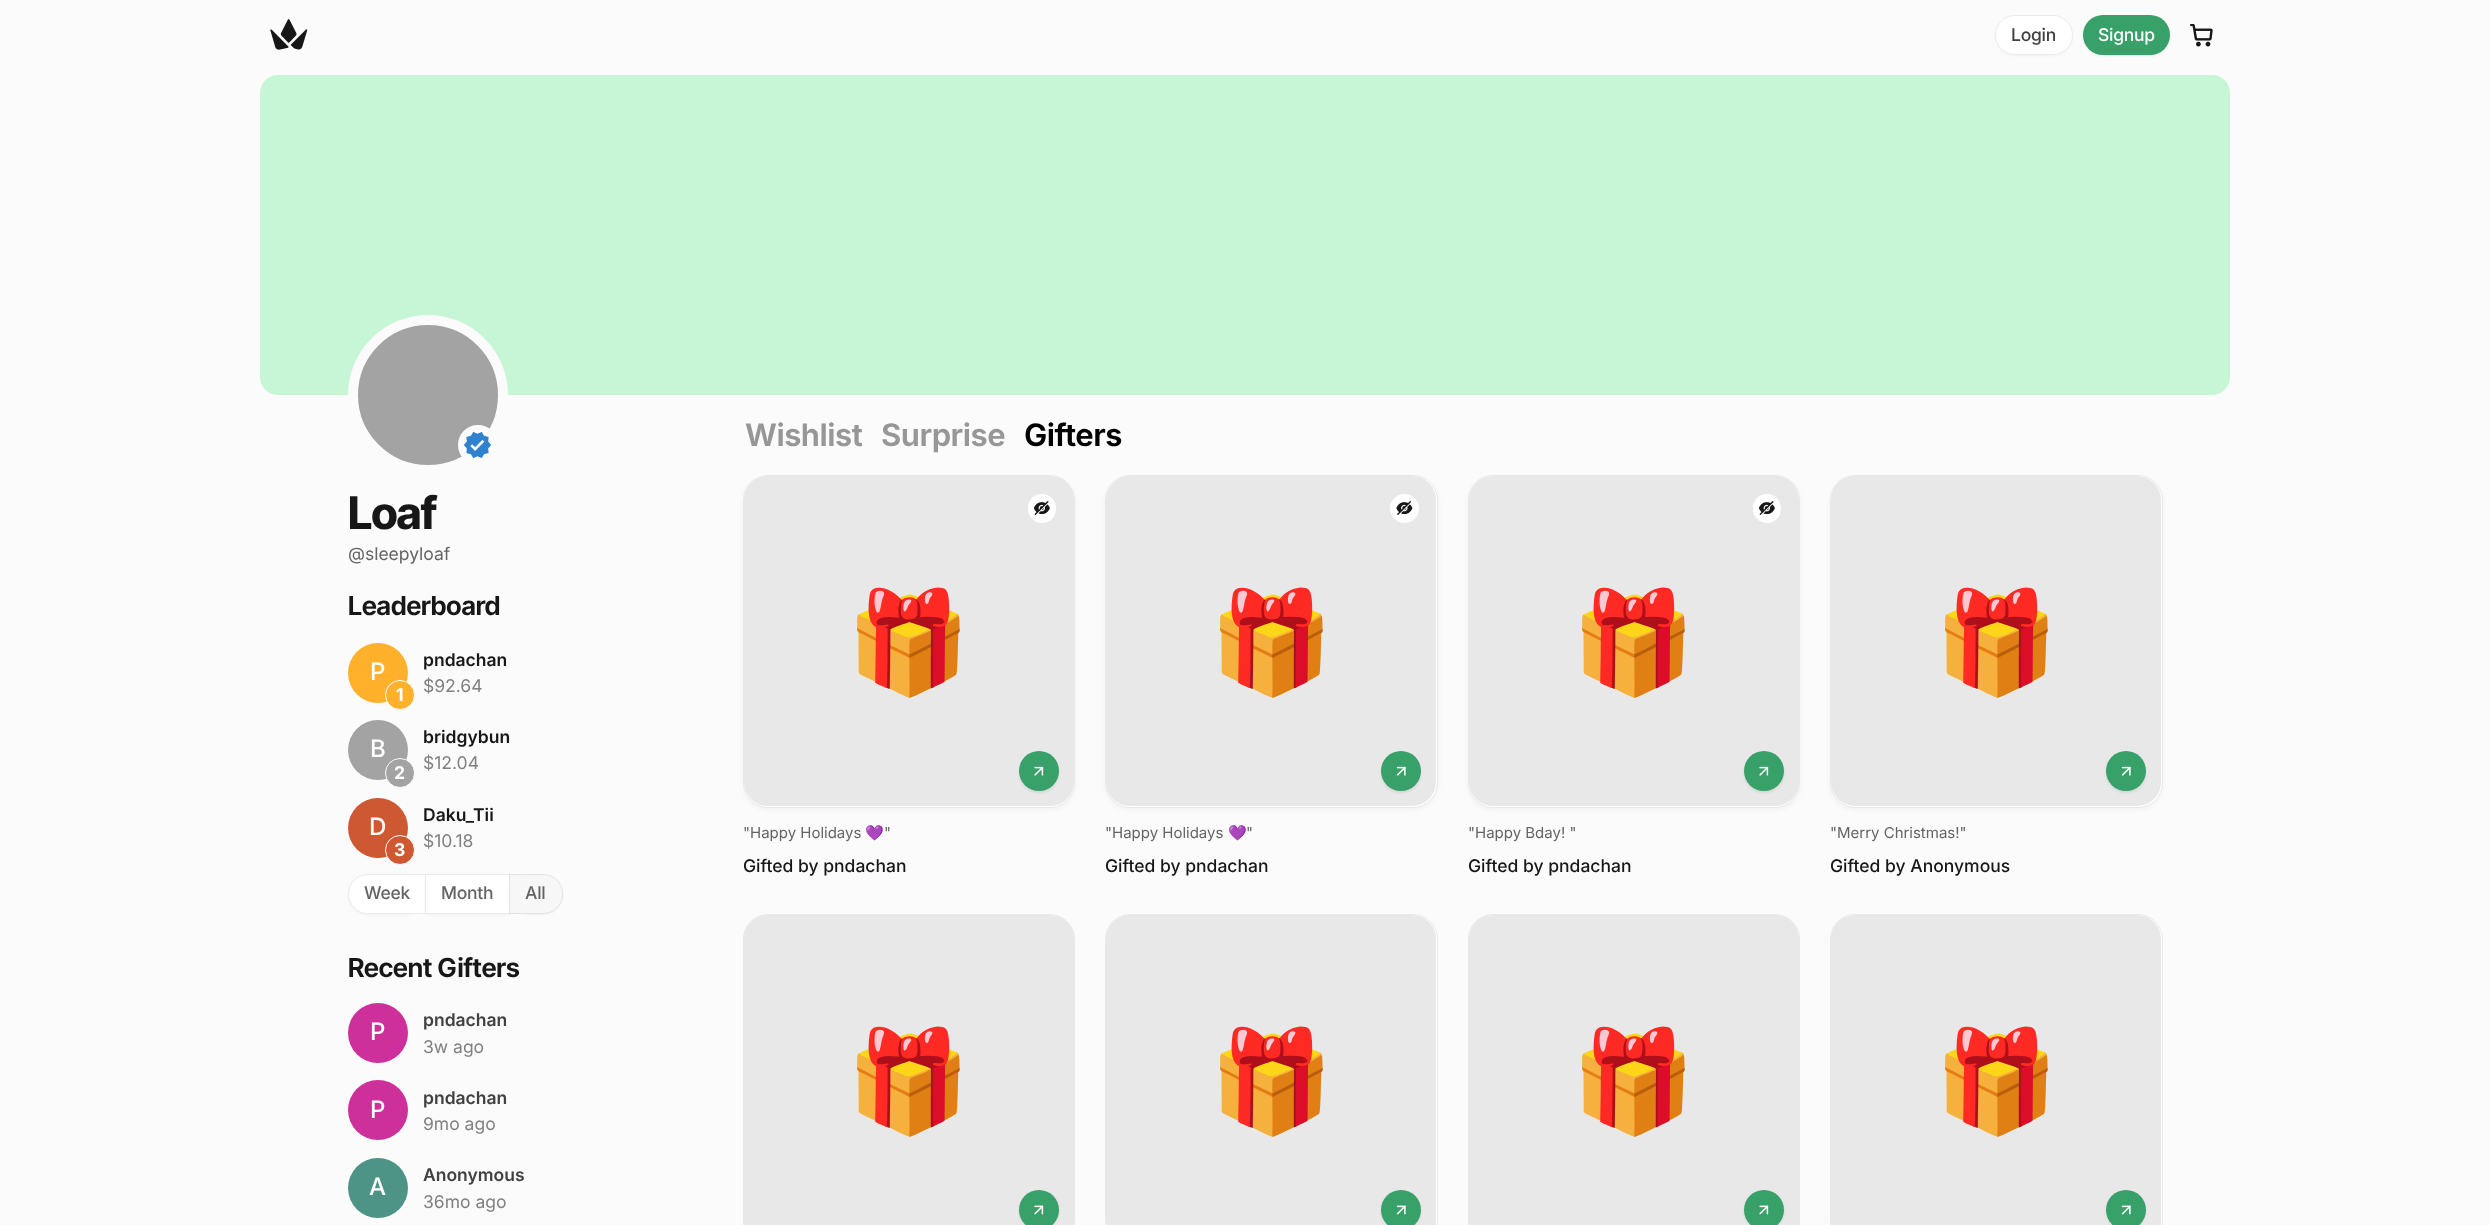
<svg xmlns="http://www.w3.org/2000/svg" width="2490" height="1225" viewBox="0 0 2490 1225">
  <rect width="100%" height="100%" fill="rgb(251,251,251)"/>
  <image x="270" y="19" width="38" height="31" href="pic1.png"/>
  <rect x="1995" y="16" width="78" height="40" rx="20" fill="rgba(0,0,0,0.04)" filter="blur(1px)"/>
  <rect x="1995" y="15" width="78" height="40" rx="20" fill="rgb(255,255,255)"/>
  <rect x="1995.5" y="15.5" width="77" height="39" rx="19.5" fill="none" stroke="rgba(0,0,0,0.08)"/>
  <text x="2011" y="41" font-family="Inter" font-size="17.5" font-weight="500" letter-spacing="-0.25" fill="rgb(64,64,64)">Login</text>
  <rect x="2083" y="16" width="87" height="40" rx="20" fill="rgba(0,0,0,0.08)" filter="blur(1px)"/>
  <rect x="2083" y="15" width="87" height="40" rx="20" fill="rgb(56,161,105)"/>
  <text x="2098" y="41" font-family="Inter" font-size="17.5" font-weight="500" letter-spacing="-0.25" fill="rgb(255,255,255)">Signup</text>
  <image x="2190" y="24" width="23" height="23" href="pic2.png"/>
  <rect x="260" y="75" width="1970" height="320" rx="18" fill="rgb(198,246,213)"/>
  <circle cx="428" cy="395" r="75" fill="rgb(163,163,163)" stroke="rgb(251,251,251)" stroke-width="10"/>
  <circle cx="478" cy="445" r="17.5" fill="rgb(255,255,255)" stroke="rgb(251,251,251)" stroke-width="5"/>
  <image x="463" y="431" width="29" height="28" href="pic3.png"/>
  <text x="348" y="529" font-family="Inter Tight" font-size="45" font-weight="bold" letter-spacing="-1" fill="rgb(23,23,23)">Loaf</text>
  <text x="348" y="560" font-family="Inter" font-size="17.5" fill="rgb(100,100,100)">@sleepyloaf</text>
  <text x="348" y="615" font-family="Inter Tight" font-size="26.25" font-weight="600" fill="rgb(23,23,23)">Leaderboard</text>
  <circle cx="378" cy="673" r="30" fill="rgb(255,177,43)"/>
  <text x="370" y="680" font-family="Inter" font-size="24" font-weight="500" fill="rgb(255,255,255)">P</text>
  <circle cx="400" cy="695" r="14.5" fill="rgb(255,177,43)" stroke="rgb(251,251,251)"/>
  <text x="396" y="701" font-family="Inter" font-size="17.5" font-weight="bold" fill="rgb(255,255,255)">1</text>
  <text x="423" y="666" font-family="'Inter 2'" font-size="17.5" font-weight="600" fill="rgb(23,23,23)">pndachan</text>
  <text x="423" y="692" font-family="Inter" font-size="17.5" fill="rgb(128,128,128)">$92.64</text>
  <circle cx="378" cy="750" r="30" fill="rgb(163,163,163)"/>
  <text x="370" y="757" font-family="Inter" font-size="24" font-weight="500" fill="rgb(255,255,255)">B</text>
  <circle cx="400" cy="773" r="14.5" fill="rgb(163,163,163)" stroke="rgb(251,251,251)"/>
  <text x="394" y="779" font-family="Inter" font-size="17.5" font-weight="bold" fill="rgb(255,255,255)">2</text>
  <text x="423" y="743" font-family="'Inter 2'" font-size="17.5" font-weight="600" fill="rgb(23,23,23)">bridgybun</text>
  <text x="423" y="769" font-family="Inter" font-size="17.5" fill="rgb(128,128,128)">$12.04</text>
  <circle cx="378" cy="828" r="30" fill="rgb(205,88,50)"/>
  <text x="369" y="835" font-family="Inter" font-size="24" font-weight="500" fill="rgb(255,255,255)">D</text>
  <circle cx="400" cy="850" r="14.5" fill="rgb(205,88,50)" stroke="rgb(251,251,251)"/>
  <text x="394" y="856" font-family="Inter" font-size="17.5" font-weight="bold" fill="rgb(255,255,255)">3</text>
  <text x="423" y="821" font-family="'Inter 2'" font-size="17.5" font-weight="600" fill="rgb(23,23,23)">Daku_Tii</text>
  <text x="423" y="847" font-family="Inter" font-size="17.5" fill="rgb(128,128,128)">$10.18</text>
  <rect x="348" y="875" width="78" height="40" rx="20" fill="rgba(0,0,0,0.04)" filter="blur(1px)"/>
  <path d="M368 874H426V914H368C357 914 348 905 348 894C348 883 357 874 368 874Z" fill="rgb(255,255,255)"/>
  <path d="M368 874.5H425.5V913.5H368C357 913.5 348.5 905 348.5 894C348.5 883 357 874.5 368 874.5Z" fill="none" stroke="rgba(0,0,0,0.08)"/>
  <text x="364" y="899" font-family="Inter" font-size="17.5" font-weight="500" letter-spacing="-0.25" fill="rgb(100,100,100)">Week</text>
  <rect x="425" y="875" width="85" height="40" fill="rgba(0,0,0,0.04)" filter="blur(1px)"/>
  <rect x="425.5" y="874.5" width="84" height="39" fill="rgb(255,255,255)" stroke="rgb(235,235,235)"/>
  <text x="441" y="899" font-family="Inter" font-size="17.5" font-weight="500" letter-spacing="-0.25" fill="rgb(100,100,100)">Month</text>
  <rect x="509" y="875" width="54" height="40" rx="20" fill="rgba(0,0,0,0.04)" filter="blur(1px)"/>
  <path d="M509 874H543C554 874 563 883 563 894C563 905 554 914 543 914H509Z" fill="rgb(247,247,247)"/>
  <path d="M509.5 874.5H543C554 874.5 562.5 883 562.5 894C562.5 905 554 913.5 543 913.5H509.5Z" fill="none" stroke="rgba(0,0,0,0.08)"/>
  <text x="525" y="899" font-family="Inter" font-size="17.5" font-weight="500" letter-spacing="-0.25" fill="rgb(100,100,100)">All</text>
  <text x="348" y="977" font-family="Inter Tight" font-size="26.25" font-weight="600" fill="rgb(23,23,23)">Recent Gifters</text>
  <circle cx="378" cy="1033" r="30" fill="rgb(205,48,155)"/>
  <text x="370" y="1040" font-family="Inter" font-size="24" font-weight="500" fill="rgb(255,255,255)">P</text>
  <text x="423" y="1026" font-family="'Inter 2'" font-size="17.5" font-weight="600" fill="rgb(64,64,64)">pndachan</text>
  <text x="423" y="1053" font-family="Inter" font-size="17.5" fill="rgb(128,128,128)">3w ago</text>
  <circle cx="378" cy="1110" r="30" fill="rgb(205,48,155)"/>
  <text x="370" y="1118" font-family="Inter" font-size="24" font-weight="500" fill="rgb(255,255,255)">P</text>
  <text x="423" y="1104" font-family="'Inter 2'" font-size="17.5" font-weight="600" fill="rgb(64,64,64)">pndachan</text>
  <text x="423" y="1130" font-family="Inter" font-size="17.5" fill="rgb(128,128,128)">9mo ago</text>
  <circle cx="378" cy="1188" r="30" fill="rgb(77,148,134)"/>
  <text x="369" y="1195" font-family="Inter" font-size="24" font-weight="500" fill="rgb(255,255,255)">A</text>
  <text x="423" y="1181" font-family="'Inter 2'" font-size="17.5" font-weight="600" fill="rgb(64,64,64)">Anonymous</text>
  <text x="423" y="1208" font-family="Inter" font-size="17.5" fill="rgb(128,128,128)">36mo ago</text>
  <g font-family="Inter" font-size="31" font-weight="600" letter-spacing="-0.5" fill="rgb(151,151,151)">
    <text x="745" y="446">Wishlist</text>
    <text x="881" y="446">Surprise</text>
  </g>
  <text x="1024" y="446" font-family="Inter" font-size="31" font-weight="600" letter-spacing="-0.5" fill="rgb(0,0,0)">Gifters</text>
  <rect x="743" y="478" width="332" height="332" rx="25" fill="rgba(0,0,0,0.04)" filter="blur(2.5px)"/>
  <rect x="743.5" y="475.5" width="331" height="332" rx="24.5" fill="rgb(255,255,255)" stroke="rgb(232,232,232)"/>
  <rect x="744" y="476" width="330" height="330" rx="24" fill="rgb(232,232,232)"/>
  <rect x="1028" y="494" width="28" height="29" rx="14" fill="rgb(255,255,255)"/>
  <image x="1033" y="501" width="17" height="14" href="pic4.png"/>
  <text x="846" y="677" font-family="Noto Color Emoji" font-size="100" fill="rgb(23,23,23)">🎁</text>
  <rect x="1019" y="753" width="40" height="40" rx="20" fill="rgba(0,0,0,0.08)" filter="blur(1px)"/>
  <circle cx="1039" cy="771" r="20" fill="rgb(56,161,105)"/>
  <image x="1034" y="766" width="10" height="10" href="pic5.png"/>
  <text x="743" y="838" font-family="Inter" font-size="15" fill="rgb(100,100,100)">"Happy Holidays</text>
  <text x="865" y="838" font-family="Noto Color Emoji" font-size="15" fill="rgb(100,100,100)">💜</text>
  <text x="884" y="838" font-family="Inter" font-size="15" fill="rgb(100,100,100)">"</text>
  <text x="743" y="872" font-family="Inter" font-size="17.5" font-weight="500" fill="rgb(23,23,23)">Gifted by pndachan</text>
  <rect x="1105" y="478" width="333" height="332" rx="25" fill="rgba(0,0,0,0.04)" filter="blur(2.5px)"/>
  <rect x="1105.5" y="475.5" width="332" height="332" rx="24.5" fill="rgb(255,255,255)" stroke="rgb(232,232,232)"/>
  <rect x="1106" y="476" width="330" height="330" rx="24" fill="rgb(232,232,232)"/>
  <circle cx="1404.5" cy="508.5" r="14.5" fill="rgb(255,255,255)"/>
  <image x="1396" y="501" width="17" height="14" href="pic6.png"/>
  <text x="1209" y="677" font-family="Noto Color Emoji" font-size="100" fill="rgb(23,23,23)">🎁</text>
  <rect x="1381" y="753" width="40" height="40" rx="20" fill="rgba(0,0,0,0.08)" filter="blur(1px)"/>
  <circle cx="1401" cy="771" r="20" fill="rgb(56,161,105)"/>
  <image x="1396" y="766" width="10" height="10" href="pic7.png"/>
  <text x="1105" y="838" font-family="Inter" font-size="15" fill="rgb(100,100,100)">"Happy Holidays</text>
  <text x="1228" y="838" font-family="Noto Color Emoji" font-size="15" fill="rgb(100,100,100)">💜</text>
  <text x="1246" y="838" font-family="Inter" font-size="15" fill="rgb(100,100,100)">"</text>
  <text x="1105" y="872" font-family="Inter" font-size="17.5" font-weight="500" fill="rgb(23,23,23)">Gifted by pndachan</text>
  <rect x="1468" y="478" width="332" height="332" rx="25" fill="rgba(0,0,0,0.04)" filter="blur(2.5px)"/>
  <rect x="1468.5" y="475.5" width="331" height="332" rx="24.5" fill="rgb(255,255,255)" stroke="rgb(232,232,232)"/>
  <rect x="1469" y="476" width="330" height="330" rx="24" fill="rgb(232,232,232)"/>
  <rect x="1753" y="494" width="28" height="29" rx="14" fill="rgb(255,255,255)"/>
  <image x="1758" y="501" width="17" height="14" href="pic4.png"/>
  <text x="1571" y="677" font-family="Noto Color Emoji" font-size="100" fill="rgb(23,23,23)">🎁</text>
  <rect x="1744" y="753" width="40" height="40" rx="20" fill="rgba(0,0,0,0.08)" filter="blur(1px)"/>
  <circle cx="1764" cy="771" r="20" fill="rgb(56,161,105)"/>
  <image x="1759" y="766" width="10" height="10" href="pic5.png"/>
  <text x="1468" y="838" font-family="Inter" font-size="15" fill="rgb(100,100,100)">"Happy Bday! "</text>
  <text x="1468" y="872" font-family="Inter" font-size="17.5" font-weight="500" fill="rgb(23,23,23)">Gifted by pndachan</text>
  <rect x="1830" y="478" width="333" height="332" rx="25" fill="rgba(0,0,0,0.04)" filter="blur(2.5px)"/>
  <rect x="1830.5" y="475.5" width="332" height="332" rx="24.5" fill="rgb(255,255,255)" stroke="rgb(232,232,232)"/>
  <rect x="1831" y="476" width="330" height="330" rx="24" fill="rgb(232,232,232)"/>
  <text x="1934" y="677" font-family="Noto Color Emoji" font-size="100" fill="rgb(23,23,23)">🎁</text>
  <rect x="2106" y="753" width="40" height="40" rx="20" fill="rgba(0,0,0,0.08)" filter="blur(1px)"/>
  <circle cx="2126" cy="771" r="20" fill="rgb(56,161,105)"/>
  <image x="2121" y="766" width="10" height="10" href="pic7.png"/>
  <text x="1830" y="838" font-family="Inter" font-size="15" fill="rgb(100,100,100)">"Merry Christmas!"</text>
  <text x="1830" y="872" font-family="Inter" font-size="17.5" font-weight="500" fill="rgb(23,23,23)">Gifted by Anonymous</text>
  <rect x="743.5" y="914.5" width="331" height="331" rx="24.5" fill="none" stroke="rgb(232,232,232)"/>
  <rect x="744" y="915" width="330" height="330" rx="24" fill="rgb(232,232,232)"/>
  <text x="846" y="1116" font-family="Noto Color Emoji" font-size="100" fill="rgb(23,23,23)">🎁</text>
  <rect x="1019" y="1191" width="40" height="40" rx="20" fill="rgba(0,0,0,0.08)" filter="blur(1px)"/>
  <circle cx="1039" cy="1210" r="20" fill="rgb(56,161,105)"/>
  <image x="1034" y="1205" width="10" height="10" href="pic8.png"/>
  <rect x="1105.5" y="914.5" width="332" height="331" rx="24.5" fill="rgb(255,255,255)" stroke="rgb(232,232,232)"/>
  <rect x="1106" y="915" width="330" height="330" rx="24" fill="rgb(232,232,232)"/>
  <text x="1209" y="1116" font-family="Noto Color Emoji" font-size="100" fill="rgb(23,23,23)">🎁</text>
  <rect x="1381" y="1191" width="40" height="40" rx="20" fill="rgba(0,0,0,0.08)" filter="blur(1px)"/>
  <circle cx="1401" cy="1210" r="20" fill="rgb(56,161,105)"/>
  <image x="1396" y="1205" width="10" height="10" href="pic9.png"/>
  <rect x="1468.5" y="914.5" width="331" height="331" rx="24.5" fill="none" stroke="rgb(232,232,232)"/>
  <rect x="1469" y="915" width="330" height="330" rx="24" fill="rgb(232,232,232)"/>
  <text x="1571" y="1116" font-family="Noto Color Emoji" font-size="100" fill="rgb(23,23,23)">🎁</text>
  <rect x="1744" y="1191" width="40" height="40" rx="20" fill="rgba(0,0,0,0.08)" filter="blur(1px)"/>
  <circle cx="1764" cy="1210" r="20" fill="rgb(56,161,105)"/>
  <image x="1759" y="1205" width="10" height="10" href="pic8.png"/>
  <rect x="1830.5" y="914.5" width="332" height="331" rx="24.5" fill="rgb(255,255,255)" stroke="rgb(232,232,232)"/>
  <rect x="1831" y="915" width="330" height="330" rx="24" fill="rgb(232,232,232)"/>
  <text x="1934" y="1116" font-family="Noto Color Emoji" font-size="100" fill="rgb(23,23,23)">🎁</text>
  <rect x="2106" y="1191" width="40" height="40" rx="20" fill="rgba(0,0,0,0.08)" filter="blur(1px)"/>
  <circle cx="2126" cy="1210" r="20" fill="rgb(56,161,105)"/>
  <image x="2121" y="1205" width="10" height="10" href="pic9.png"/>
</svg>
